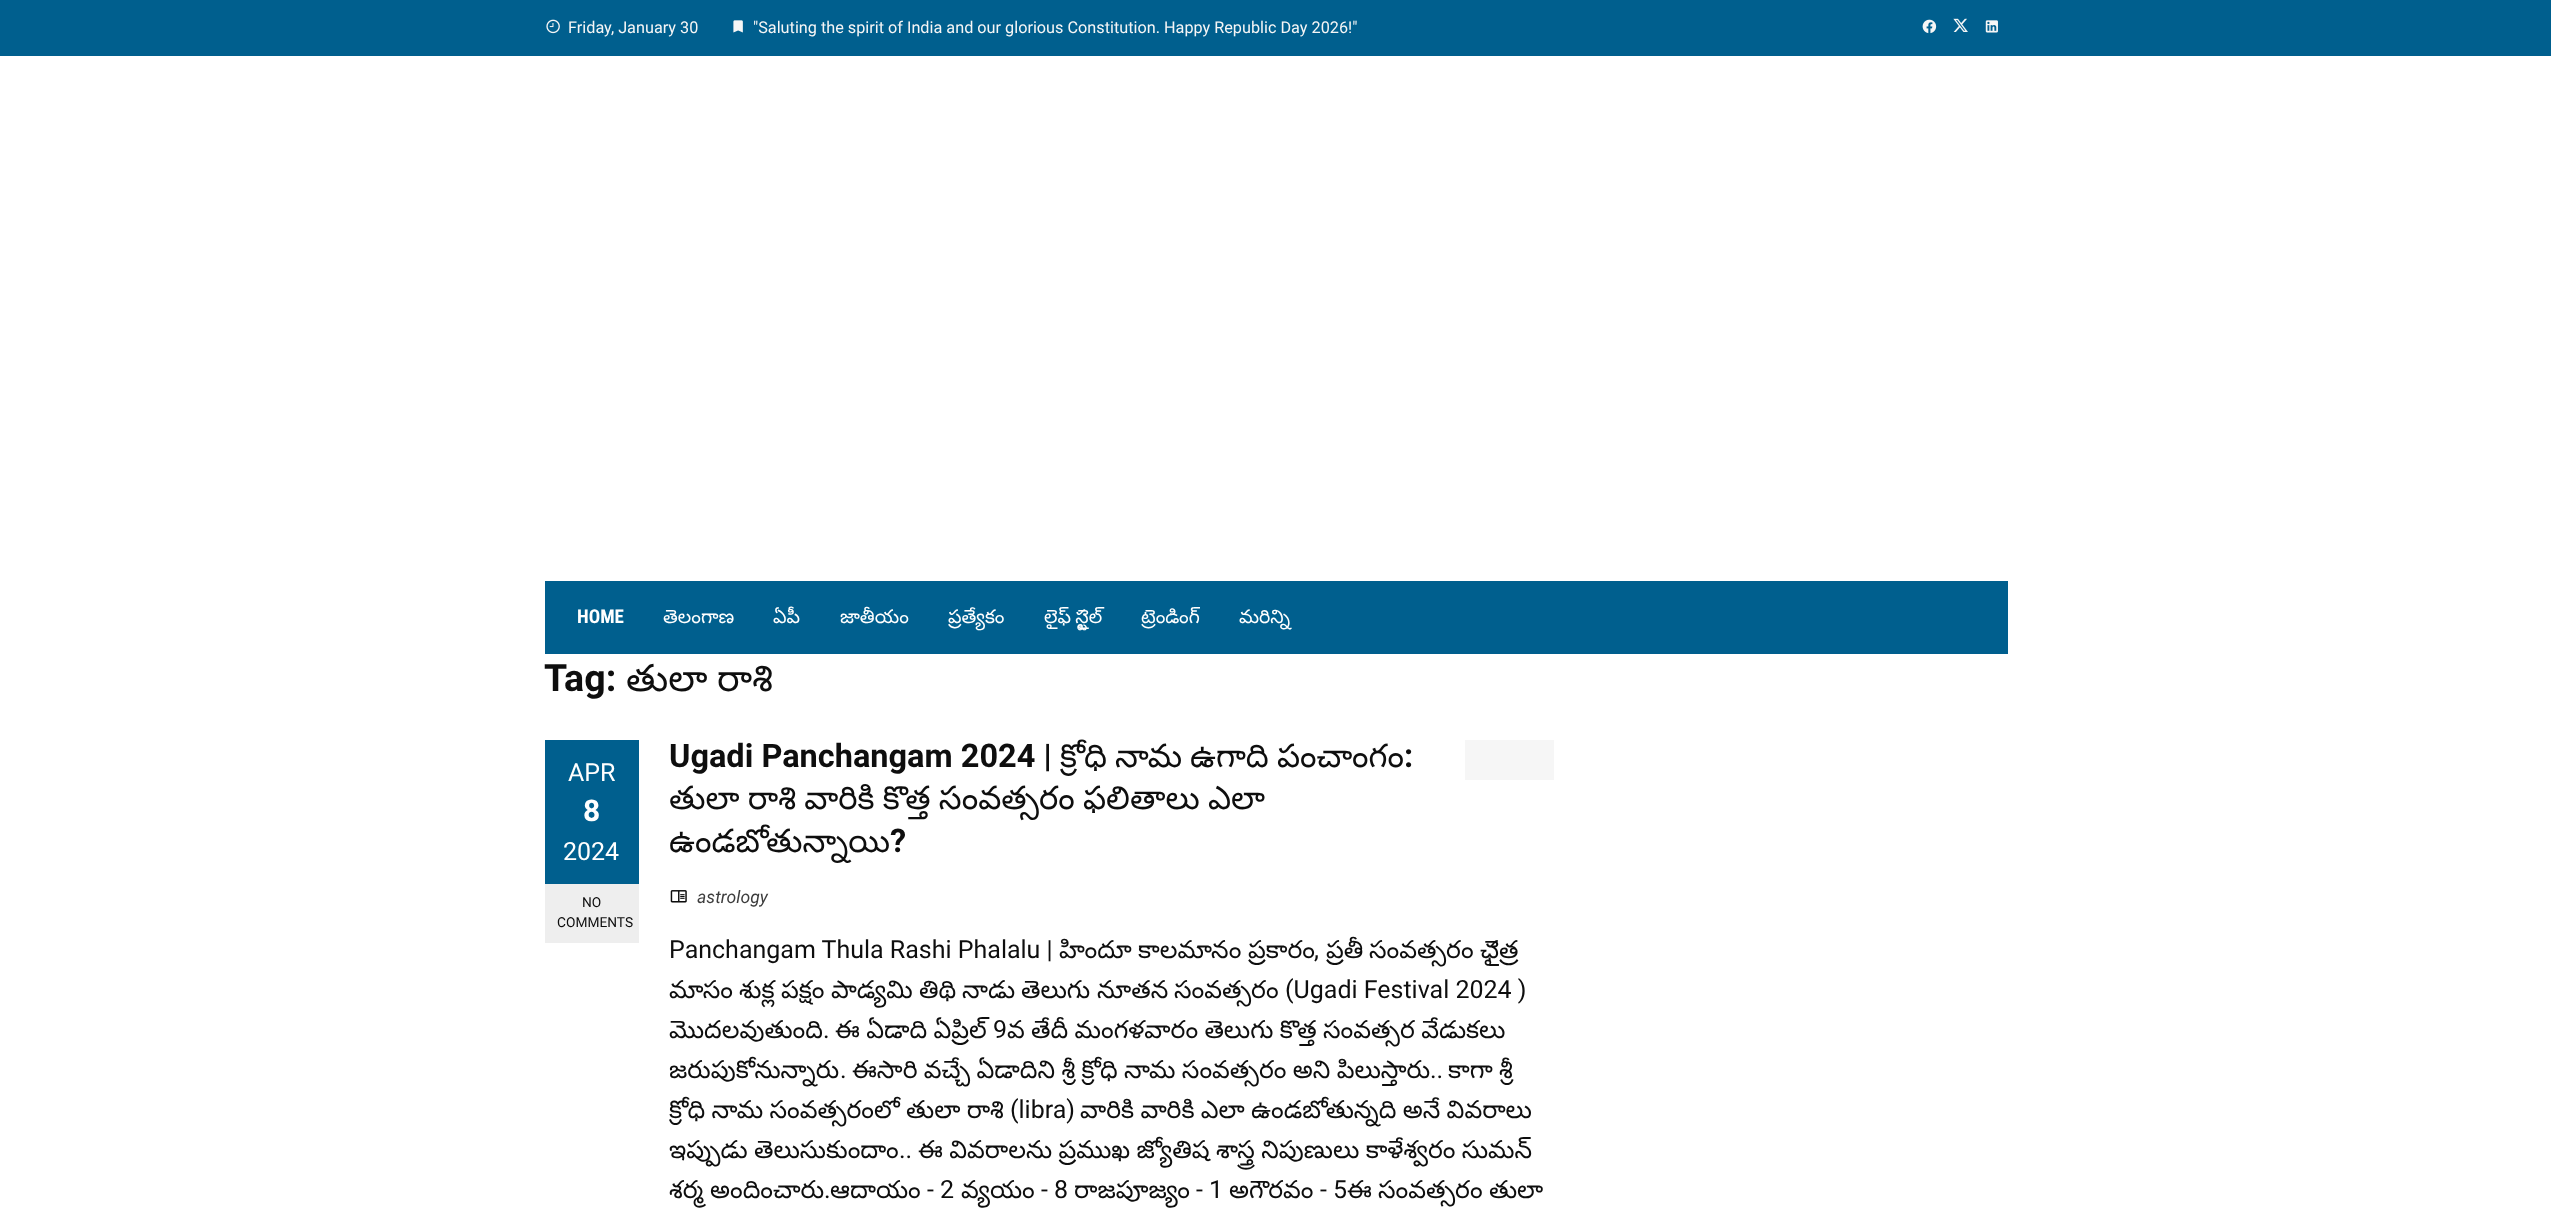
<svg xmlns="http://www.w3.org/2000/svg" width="2551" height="1211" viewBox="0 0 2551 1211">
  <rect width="100%" height="100%" fill="rgb(255,255,255)"/>
  <rect x="0" y="0" width="2551" height="56" fill="rgb(0,95,142)"/>
  <image x="546" y="19" width="14" height="15" href="pic1.png"/>
  <text x="568" y="33" font-family="Roboto" font-size="16.25" fill="rgb(246,246,246)">Friday, January 30</text>
  <image x="733" y="20" width="10" height="13" href="pic2.png"/>
  <text x="753" y="33" font-family="Roboto" font-size="16.25" fill="rgb(246,246,246)">"Saluting the spirit of India and our glorious Constitution. Happy Republic Day 2026!"</text>
  <image x="1922" y="19" width="15" height="15" href="pic3.png"/>
  <image x="1953" y="18" width="15" height="14" href="pic4.png"/>
  <image x="1985" y="20" width="13" height="13" href="pic5.png"/>
  <rect x="545" y="581" width="1463" height="73" fill="rgb(0,95,142)"/>
  <text x="577" y="623" font-family="Roboto Condensed" font-size="19" font-weight="bold" fill="rgb(255,255,255)">HOME</text>
  <g font-family="Noto Sans Telugu" font-size="19" fill="rgb(255,255,255)">
    <text x="663" y="623">తెలంగాణ</text>
    <text x="773" y="623">ఏపీ</text>
    <text x="840" y="623">జాతీయం</text>
    <text x="948" y="623">ప్రత్యేకం</text>
    <text x="1044" y="623" word-spacing="-1">లైఫ్ స్టైల్</text>
    <text x="1141" y="623">ట్రెండింగ్</text>
    <text x="1239" y="623">మరిన్ని</text>
  </g>
  <text x="544" y="691" font-family="Roboto" font-size="37.5" font-weight="bold" fill="rgb(14,14,14)">Tag:</text>
  <text x="626" y="691" word-spacing="-1" font-family="Noto Sans Telugu" font-size="37.5" fill="rgb(14,14,14)">తులా రాశి</text>
  <rect x="545" y="740" width="94" height="144" fill="rgb(0,95,142)"/>
  <text x="568" y="781" font-family="Roboto" font-size="25" fill="rgb(255,255,255)">APR</text>
  <text x="583" y="821" font-family="Roboto" font-size="30" font-weight="bold" fill="rgb(255,255,255)">8</text>
  <text x="563" y="860" font-family="Roboto" font-size="25" fill="rgb(255,255,255)">2024</text>
  <rect x="545" y="884" width="94" height="59" fill="rgb(238,238,238)"/>
  <g font-family="Roboto" font-size="13.75" fill="rgb(14,14,14)">
    <text x="582" y="907">NO</text>
    <text x="557" y="927">COMMENTS</text>
  </g>
  <text x="669" y="767" font-family="Roboto" font-size="32.5" font-weight="bold" fill="rgb(14,14,14)">Ugadi Panchangam 2024 |</text>
  <g font-family="Noto Sans Telugu" font-size="32.5" fill="rgb(14,14,14)">
    <text x="1060" y="767">క్రోధి</text>
    <text x="1115" y="767">నామ</text>
    <text x="1190" y="767">ఉగాది</text>
    <text x="1277" y="767">పంచాంగం</text>
  </g>
  <text x="1404" y="767" font-family="Roboto" font-size="32.5" font-weight="bold" fill="rgb(14,14,14)">:</text>
  <g font-family="Noto Sans Telugu" font-size="32.5" fill="rgb(14,14,14)">
    <text>
      <tspan x="669" y="809" word-spacing="-1">తులా రాశి వారికి కొత్త సంవత్సరం ఫలితాలు ఎలా</tspan>
      <tspan x="669" y="852">ఉండబోతున్నాయి</tspan>
    </text>
  </g>
  <text x="890" y="852" font-family="Roboto" font-size="32.5" font-weight="bold" fill="rgb(14,14,14)">?</text>
  <rect x="1465" y="740" width="89" height="40" fill="rgb(246,246,246)"/>
  <image x="670" y="890" width="17" height="13" href="pic6.png"/>
  <text x="697" y="903" font-family="Roboto" font-size="17.5" font-style="italic" fill="rgb(61,61,61)">astrology</text>
  <text x="669" y="958" font-family="Roboto" font-size="25" fill="rgb(14,14,14)">Panchangam Thula Rashi Phalalu |</text>
  <g font-family="Noto Sans Telugu" font-size="25" fill="rgb(14,14,14)">
    <text x="1059" y="958">హిందూ</text>
    <text x="1138" y="958">కాల‌మానం</text>
    <text x="1248" y="958">ప్రకారం</text>
  </g>
  <text x="1314" y="958" font-family="Roboto" font-size="25" fill="rgb(14,14,14)">,</text>
  <g font-family="Noto Sans Telugu" font-size="25" fill="rgb(14,14,14)">
    <text x="1326" y="958">ప్రతీ</text>
    <text x="1369" y="958">సంవత్సరం</text>
    <text x="1480" y="958">ఛైత్ర</text>
    <text x="669" y="998">మాసం</text>
    <text x="739" y="998">శుక్ల</text>
    <text x="781" y="998">పక్షం</text>
    <text x="831" y="998">పాడ్యమి</text>
    <text x="919" y="998">తిథి</text>
    <text x="962" y="998">నాడు</text>
    <text x="1021" y="998">తెలుగు</text>
    <text x="1097" y="998">నూతన</text>
    <text x="1174" y="998">సంవత్సరం</text>
  </g>
  <text x="1285" y="998" font-family="Roboto" font-size="25" fill="rgb(14,14,14)">(Ugadi Festival 2024 )</text>
  <text x="669" y="1038" font-family="Noto Sans Telugu" font-size="25" fill="rgb(14,14,14)">మొద‌ల‌వుతుంది</text>
  <text x="823" y="1038" font-family="Roboto" font-size="25" fill="rgb(14,14,14)">.</text>
  <text x="835" y="1038" word-spacing="-0.75" font-family="Noto Sans Telugu" font-size="25" fill="rgb(14,14,14)">ఈ ఏడాది ఏప్రిల్</text>
  <text x="993" y="1038" font-family="Roboto" font-size="25" fill="rgb(14,14,14)">9</text>
  <g font-family="Noto Sans Telugu" font-size="25" fill="rgb(14,14,14)">
    <text x="1007" y="1038" word-spacing="-0.75">వ తేదీ మంగళవారం తెలుగు కొత్త సంవ‌త్స‌ర వేడుక‌లు</text>
    <text x="669" y="1078">జరుపుకోనున్నారు</text>
  </g>
  <text x="840" y="1078" font-family="Roboto" font-size="25" fill="rgb(14,14,14)">.</text>
  <text x="852" y="1078" word-spacing="-0.75" font-family="Noto Sans Telugu" font-size="25" fill="rgb(14,14,14)">ఈసారి వచ్చే ఏడాదిని శ్రీ క్రోధి నామ సంవత్సరం అని పిలుస్తారు</text>
  <text x="1430" y="1078" font-family="Roboto" font-size="25" fill="rgb(14,14,14)">..</text>
  <g font-family="Noto Sans Telugu" font-size="25" fill="rgb(14,14,14)">
    <text x="1448" y="1078" word-spacing="-0.75">కాగా శ్రీ</text>
    <text x="669" y="1118" word-spacing="-0.75">క్రోధి నామ సంవ‌త్స‌రంలో తులా రాశి</text>
  </g>
  <text x="1010" y="1118" font-family="Roboto" font-size="25" fill="rgb(14,14,14)">(libra)</text>
  <g font-family="Noto Sans Telugu" font-size="25" fill="rgb(14,14,14)">
    <text x="1080" y="1118" word-spacing="-0.75">వారికి వారికి ఎలా ఉండ‌బోతున్న‌ది అనే వివ‌రాలు</text>
    <text x="669" y="1158" word-spacing="-0.75">ఇప్పుడు తెలుసుకుందాం</text>
  </g>
  <text x="899" y="1158" font-family="Roboto" font-size="25" fill="rgb(14,14,14)">..</text>
  <g font-family="Noto Sans Telugu" font-size="25" fill="rgb(14,14,14)">
    <text x="918" y="1158" word-spacing="-0.75">ఈ వివరాలను ప్రముఖ జ్యోతిష శాస్త్ర నిపుణులు కాళేశ్వరం సుమన్</text>
    <text x="669" y="1198">శర్మ</text>
    <text x="710" y="1198">అందించారు</text>
  </g>
  <text x="824" y="1198" font-family="Roboto" font-size="25" fill="rgb(14,14,14)">.</text>
  <text x="830" y="1198" font-family="Noto Sans Telugu" font-size="25" fill="rgb(14,14,14)">ఆదాయం</text>
  <text x="927" y="1198" font-family="Roboto" font-size="25" fill="rgb(14,14,14)">- 2</text>
  <text x="961" y="1198" font-family="Noto Sans Telugu" font-size="25" fill="rgb(14,14,14)">వ్యయం</text>
  <text x="1041" y="1198" font-family="Roboto" font-size="25" fill="rgb(14,14,14)">- 8</text>
  <text x="1074" y="1198" font-family="Noto Sans Telugu" font-size="25" fill="rgb(14,14,14)">రాజపూజ్యం</text>
  <text x="1196" y="1198" font-family="Roboto" font-size="25" fill="rgb(14,14,14)">- 1</text>
  <text x="1229" y="1198" font-family="Noto Sans Telugu" font-size="25" fill="rgb(14,14,14)">అగౌరవం</text>
  <text x="1320" y="1198" font-family="Roboto" font-size="25" fill="rgb(14,14,14)">- 5</text>
  <g font-family="Noto Sans Telugu" font-size="25" fill="rgb(14,14,14)">
    <text x="1347" y="1198">ఈ</text>
    <text x="1378" y="1198">సంవత్సరం</text>
    <text x="1489" y="1198">తులా</text>
  </g>
</svg>
